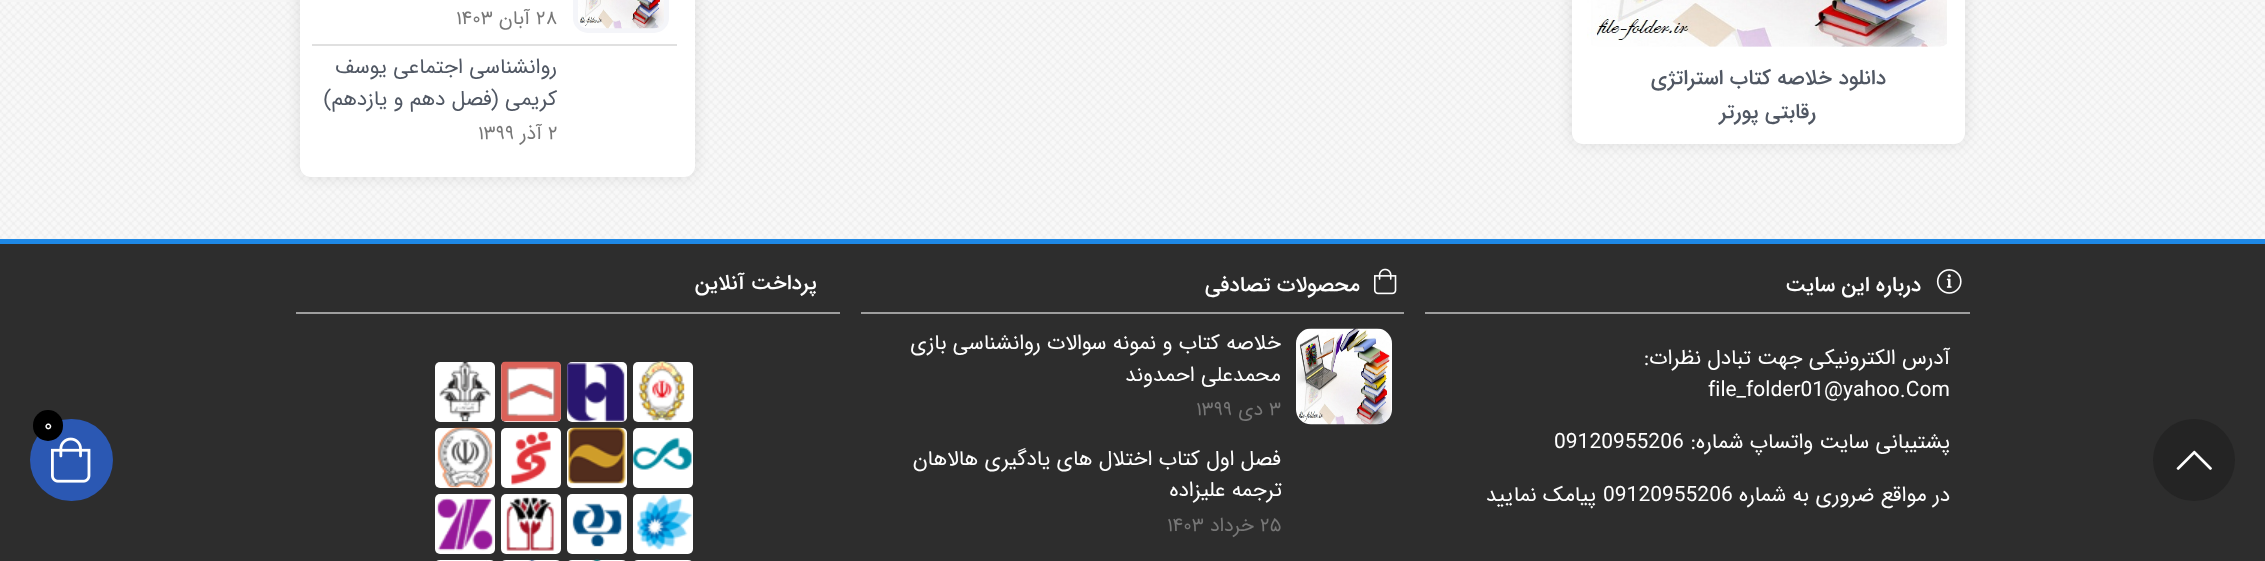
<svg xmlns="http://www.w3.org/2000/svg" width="2265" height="561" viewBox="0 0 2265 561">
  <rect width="100%" height="100%" fill="rgb(245,245,245)"/>
  <image x="0" y="2" width="2265" height="237" href="pic1.png"/>
  <rect x="1572" y="-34" width="393" height="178" rx="11" fill="rgba(0,0,0,0.1)" filter="blur(7.5px)"/>
  <rect x="1572" y="-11" width="393" height="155" rx="11" fill="rgb(255,255,255)"/>
  <image x="1587" y="0" width="360" height="47" href="pic2.png"/>
  <g font-family="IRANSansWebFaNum" font-size="21" font-weight="500" direction="rtl" fill="rgb(80,87,99)">
    <text x="1886" y="84">دانلود خلاصه کتاب استراتژی</text>
    <text x="1816" y="118">رقابتی پورتر</text>
  </g>
  <rect x="300" y="-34" width="395" height="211" rx="11" fill="rgba(0,0,0,0.1)" filter="blur(7.5px)"/>
  <rect x="300" y="-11" width="395" height="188" rx="11" fill="rgb(255,255,255)"/>
  <rect x="575.5" y="-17.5" width="91" height="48" rx="12.5" fill="none" stroke="rgb(244,245,249)" stroke-width="5"/>
  <image x="578" y="0" width="86" height="29" href="pic3.png"/>
  <text x="536" y="24" font-family="IRANSansWebFaNum" font-size="19.5" fill="rgb(119,119,119)">۲۸</text>
  <text x="530" y="24" font-family="IRANSansWebFaNum" font-size="19.5" direction="rtl" fill="rgb(119,119,119)">آبان</text>
  <text x="456" y="24" font-family="IRANSansWebFaNum" font-size="19.5" fill="rgb(119,119,119)">۱۴۰۳</text>
  <rect x="312" y="44" width="365" height="2" fill="rgb(224,224,224)"/>
  <g font-family="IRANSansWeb" font-size="21" direction="rtl" fill="rgb(80,87,99)">
    <text>
      <tspan x="557" y="73">روانشناسی اجتماعی یوسف</tspan>
      <tspan x="557" y="105">کریمی (فصل دهم و یازدهم)</tspan>
    </text>
  </g>
  <text x="548" y="139" font-family="IRANSansWebFaNum" font-size="19.5" fill="rgb(119,119,119)">۲</text>
  <text x="542" y="139" font-family="IRANSansWebFaNum" font-size="19.5" direction="rtl" fill="rgb(119,119,119)">آذر</text>
  <text x="478" y="139" font-family="IRANSansWebFaNum" font-size="19.5" fill="rgb(119,119,119)">۱۳۹۹</text>
  <rect x="0" y="244" width="2265" height="317" fill="rgb(45,45,45)"/>
  <circle cx="2194" cy="460" r="41" fill="rgb(36,36,36)"/>
  <image x="2176" y="450" width="36" height="20" href="pic4.png"/>
  <rect x="0" y="239" width="2265" height="5" fill="rgb(30,136,229)"/>
  <rect x="1425" y="312" width="545" height="2" fill="rgb(158,158,158)"/>
  <image x="1936" y="269" width="26" height="25" href="pic5.png"/>
  <text x="1921" y="291" font-family="IRANSansWebFaNum" font-size="21" font-weight="500" direction="rtl" fill="rgb(255,255,255)">درباره این سایت</text>
  <text x="1950" y="364" font-family="IRANSansWeb" font-size="21" direction="rtl" fill="rgb(255,255,255)">آدرس الکترونیکی جهت تبادل نظرات:</text>
  <text x="1708" y="396" font-family="IRANSansWeb" font-size="21" fill="rgb(255,255,255)">file_folder01@yahoo.Com</text>
  <text x="1950" y="448" font-family="IRANSansWeb" font-size="21" direction="rtl" fill="rgb(255,255,255)">پشتیبانی سایت واتساپ شماره:</text>
  <text x="1554" y="448" font-family="IRANSansWeb" font-size="21" fill="rgb(255,255,255)">09120955206</text>
  <text x="1950" y="501" font-family="IRANSansWeb" font-size="21" direction="rtl" fill="rgb(255,255,255)">در مواقع ضروری به شماره</text>
  <text x="1603" y="501" font-family="IRANSansWeb" font-size="21" fill="rgb(255,255,255)">09120955206</text>
  <text x="1596" y="501" font-family="IRANSansWeb" font-size="21" direction="rtl" fill="rgb(255,255,255)">پیامک نمایید</text>
  <rect x="861" y="312" width="543" height="2" fill="rgb(158,158,158)"/>
  <image x="1374" y="268" width="23" height="27" href="pic6.png"/>
  <text x="1360" y="291" font-family="IRANSansWebFaNum" font-size="21" font-weight="500" direction="rtl" fill="rgb(255,255,255)">محصولات تصادفی</text>
  <image x="1296" y="328" width="96" height="97" href="pic7.png"/>
  <g font-family="IRANSansWeb" font-size="21" direction="rtl" fill="rgb(255,255,255)">
    <text>
      <tspan x="1281" y="349">خلاصه کتاب و نمونه سوالات روانشناسی بازی</tspan>
      <tspan x="1281" y="381">محمدعلی احمدوند</tspan>
    </text>
  </g>
  <text x="1269" y="415" font-family="IRANSansWebFaNum" font-size="19.5" fill="rgb(119,119,119)">۳</text>
  <text x="1263" y="415" font-family="IRANSansWebFaNum" font-size="19.5" direction="rtl" fill="rgb(119,119,119)">دی</text>
  <text x="1196" y="415" font-family="IRANSansWebFaNum" font-size="19.5" fill="rgb(119,119,119)">۱۳۹۹</text>
  <g font-family="IRANSansWeb" font-size="21" direction="rtl" fill="rgb(255,255,255)">
    <text x="1281" y="465">فصل اول کتاب اختلال های یادگیری هالاهان</text>
    <text x="1282" y="496">ترجمه علیزاده</text>
  </g>
  <text x="1260" y="531" font-family="IRANSansWebFaNum" font-size="19.5" fill="rgb(119,119,119)">۲۵</text>
  <text x="1254" y="531" font-family="IRANSansWebFaNum" font-size="19.5" direction="rtl" fill="rgb(119,119,119)">خرداد</text>
  <text x="1167" y="531" font-family="IRANSansWebFaNum" font-size="19.5" fill="rgb(119,119,119)">۱۴۰۳</text>
  <rect x="296" y="312" width="544" height="2" fill="rgb(158,158,158)"/>
  <text x="817" y="289" font-family="IRANSansWebFaNum" font-size="21" font-weight="500" direction="rtl" fill="rgb(255,255,255)">پرداخت آنلاین</text>
  <rect x="633" y="362" width="60" height="60" rx="5" fill="rgb(255,255,255)"/>
  <image x="638" y="361" width="47" height="60" href="pic8.png"/>
  <rect x="567" y="362" width="60" height="60" rx="5" fill="rgb(255,255,255)"/>
  <image x="567" y="362" width="58" height="60" href="pic9.png"/>
  <rect x="501" y="362" width="60" height="60" rx="5" fill="rgb(255,255,255)"/>
  <image x="501" y="361" width="60" height="61" href="pic10.png"/>
  <rect x="435" y="362" width="60" height="60" rx="5" fill="rgb(255,255,255)"/>
  <image x="439" y="361" width="52" height="61" href="pic11.png"/>
  <rect x="633" y="428" width="60" height="60" rx="5" fill="rgb(255,255,255)"/>
  <image x="633" y="437" width="59" height="33" href="pic12.png"/>
  <rect x="567" y="428" width="60" height="60" rx="5" fill="rgb(255,255,255)"/>
  <image x="568" y="427" width="58" height="57" href="pic13.png"/>
  <rect x="501" y="428" width="60" height="60" rx="5" fill="rgb(255,255,255)"/>
  <image x="511" y="431" width="40" height="54" href="pic14.png"/>
  <rect x="435" y="428" width="60" height="60" rx="5" fill="rgb(255,255,255)"/>
  <image x="437" y="427" width="56" height="61" href="pic15.png"/>
  <rect x="633" y="494" width="60" height="60" rx="5" fill="rgb(255,255,255)"/>
  <image x="637" y="494" width="55" height="56" href="pic16.png"/>
  <rect x="567" y="494" width="60" height="60" rx="5" fill="rgb(255,255,255)"/>
  <image x="572" y="503" width="50" height="44" href="pic17.png"/>
  <rect x="501" y="494" width="60" height="60" rx="5" fill="rgb(255,255,255)"/>
  <image x="506" y="496" width="49" height="55" href="pic18.png"/>
  <rect x="435" y="494" width="60" height="60" rx="5" fill="rgb(255,255,255)"/>
  <image x="436" y="498" width="58" height="53" href="pic19.png"/>
  <rect x="633" y="560" width="60" height="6" rx="5" fill="rgb(255,255,255)"/>
  <rect x="567" y="560" width="60" height="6" rx="5" fill="rgb(255,255,255)"/>
  <image x="592" y="559" width="10" height="2" href="pic20.png"/>
  <rect x="501" y="560" width="60" height="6" rx="5" fill="rgb(255,255,255)"/>
  <image x="528" y="559" width="8" height="2" href="pic21.png"/>
  <rect x="435" y="560" width="60" height="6" rx="5" fill="rgb(255,255,255)"/>
  <rect x="486" y="560" width="1" height="1" fill="rgb(250,250,251)"/>
  <rect x="30" y="419" width="83" height="82" rx="41" fill="rgb(43,88,179)"/>
  <image x="51" y="437" width="40" height="46" href="pic22.png"/>
  <rect x="33" y="410" width="30" height="31" rx="15" fill="rgb(0,0,0)"/>
  <text x="44" y="431" font-family="IRANSansWebFaNum" font-size="19.5" fill="rgb(255,255,255)">0</text>
</svg>
